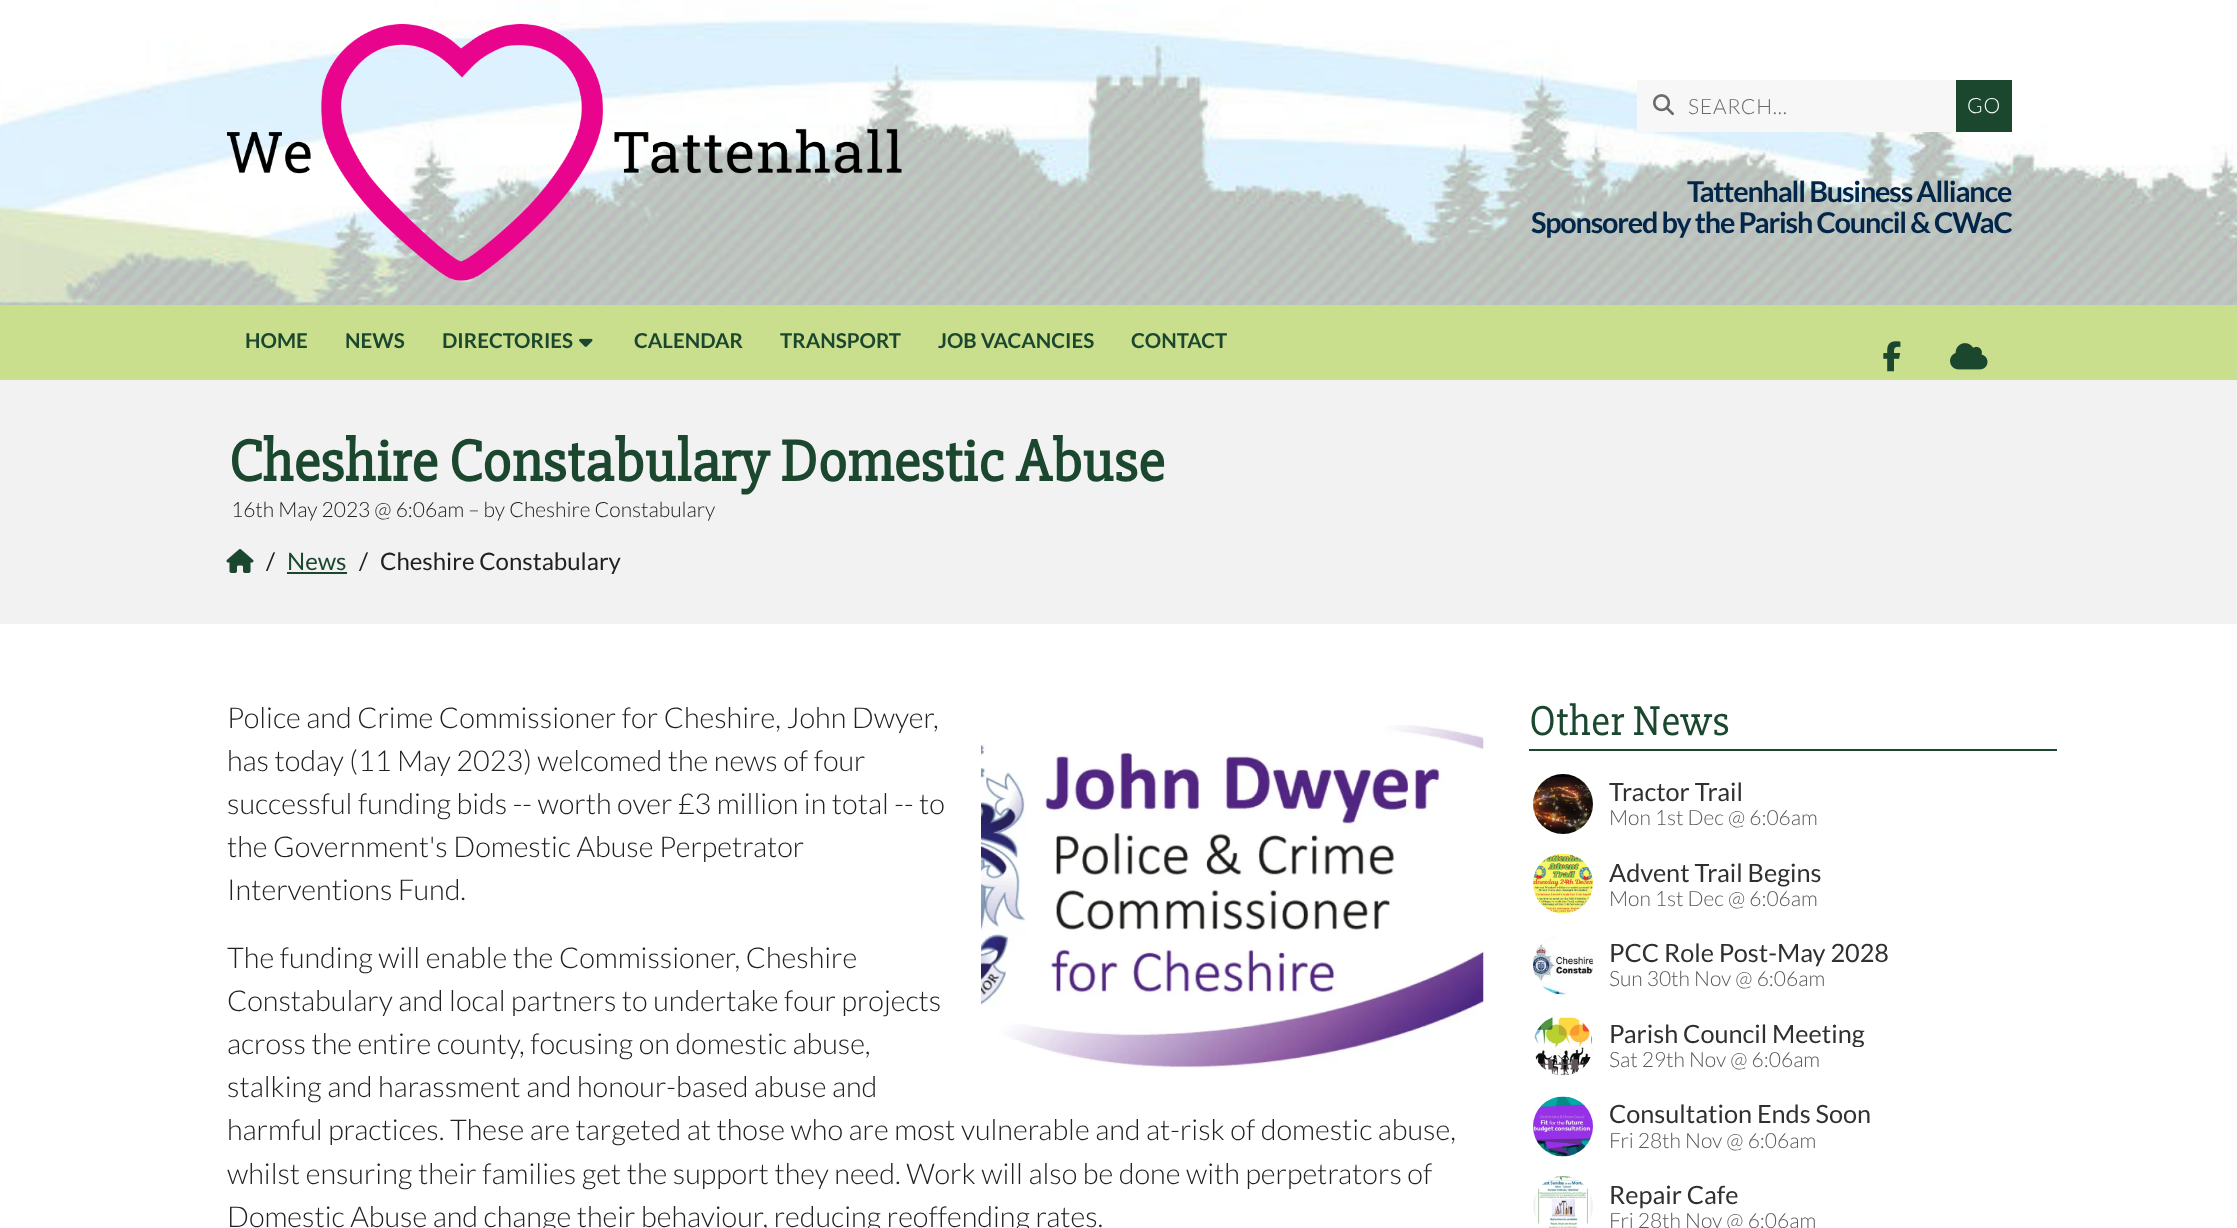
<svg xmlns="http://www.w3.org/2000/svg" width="2237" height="1228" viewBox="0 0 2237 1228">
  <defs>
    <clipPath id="clip1"><rect x="1610" y="1019" width="447" height="28"/></clipPath>
  </defs>
  <rect width="100%" height="100%" fill="rgb(255,255,255)"/>
  <image x="0" y="0" width="2237" height="305" href="pic1.png"/>
  <image x="227" y="24" width="675" height="257" href="pic2.png"/>
  <rect x="1637" y="80" width="319" height="52" fill="rgb(247,247,247)"/>
  <image x="1653" y="94" width="21" height="22" href="pic3.png"/>
  <text x="1688" y="114" font-family="Lato" font-size="21" font-weight="300" letter-spacing="0.75" fill="rgb(106,106,106)">SEARCH...</text>
  <rect x="1956" y="80" width="56" height="52" fill="rgb(27,71,47)"/>
  <text x="1967" y="113" font-family="Lato" font-size="21" font-weight="300" letter-spacing="0.75" fill="rgb(255,255,255)">GO</text>
  <g font-family="Lato" font-size="28.8" font-weight="bold" letter-spacing="-1.2" fill="rgb(2,38,73)">
    <text x="1687" y="202">Tattenhall Business Alliance</text>
    <text x="1531" y="233">Sponsored by the Parish Council &amp; CWaC</text>
  </g>
  <rect x="0" y="305" width="2237" height="75" fill="rgb(202,223,142)"/>
  <g font-family="Lato" font-size="20.5" font-weight="bold" fill="rgb(27,71,47)">
    <text x="245" y="348">HOME</text>
    <text x="345" y="348">NEWS</text>
    <text x="442" y="348">DIRECTORIES</text>
  </g>
  <image x="579" y="338" width="14" height="9" href="pic4.png"/>
  <g font-family="Lato" font-size="20.5" font-weight="bold" fill="rgb(27,71,47)">
    <text x="634" y="348">CALENDAR</text>
    <text x="780" y="348">TRANSPORT</text>
    <text x="938" y="348">JOB VACANCIES</text>
    <text x="1131" y="348">CONTACT</text>
  </g>
  <image x="1883" y="341" width="18" height="31" href="pic5.png"/>
  <image x="1950" y="343" width="38" height="27" href="pic6.png"/>
  <rect x="0" y="380" width="2237" height="244" fill="rgb(242,242,242)"/>
  <text x="229" y="481" font-family="'Slabo 27px'" font-size="60" font-weight="bold" fill="rgb(27,71,47)">Cheshire Constabulary Domestic Abuse</text>
  <text x="231" y="517" font-family="Lato" font-size="21" font-weight="300" fill="rgb(33,33,33)">16th May 2023 @ 6:06am – by Cheshire Constabulary</text>
  <image x="226" y="549" width="28" height="24" href="pic7.png"/>
  <text x="266" y="570" font-family="Lato" font-size="24" fill="rgb(33,33,33)">/</text>
  <text x="287" y="570" font-family="Lato" font-size="24" fill="rgb(27,71,47)">News</text>
  <rect x="287" y="572" width="60" height="2" fill="rgb(27,71,47)"/>
  <g font-family="Lato" font-size="24" fill="rgb(33,33,33)">
    <text x="359" y="570">/</text>
    <text x="380" y="570">Cheshire Constabulary</text>
  </g>
  <g font-family="Lato" font-size="28.8" font-weight="300" fill="rgb(33,33,33)">
    <text>
      <tspan x="227" y="728">Police and Crime Commissioner for Cheshire, John Dwyer,</tspan>
      <tspan x="227" y="771">has today (11 May 2023) welcomed the news of four</tspan>
      <tspan x="227" y="814">successful funding bids -- worth over £3 million in total -- to</tspan>
      <tspan x="227" y="857">the Government's Domestic Abuse Perpetrator</tspan>
      <tspan x="227" y="900">Interventions Fund.</tspan>
    </text>
  </g>
  <image x="981" y="725" width="503" height="343" href="pic8.png"/>
  <g font-family="Lato" font-size="28.8" font-weight="300" fill="rgb(33,33,33)">
    <text>
      <tspan x="227" y="968">The funding will enable the Commissioner, Cheshire</tspan>
      <tspan x="227" y="1011">Constabulary and local partners to undertake four projects</tspan>
      <tspan x="227" y="1054">across the entire county, focusing on domestic abuse,</tspan>
      <tspan x="227" y="1097">stalking and harassment and honour-based abuse and</tspan>
      <tspan x="227" y="1140">harmful practices. These are targeted at those who are most vulnerable and at-risk of domestic abuse,</tspan>
      <tspan x="227" y="1184">whilst ensuring their families get the support they need. Work will also be done with perpetrators of</tspan>
      <tspan x="227" y="1227">Domestic Abuse and change their behaviour, reducing reoffending rates.</tspan>
    </text>
  </g>
  <rect x="1529" y="749" width="528" height="2" fill="rgb(27,71,47)"/>
  <text x="1529" y="735" font-family="'Slabo 27px'" font-size="43" fill="rgb(27,71,47)">Other News</text>
  <image x="1533" y="774" width="60" height="60" href="pic9.png"/>
  <text x="1609" y="801" font-family="Lato" font-size="25.25" fill="rgb(48,48,48)">Tractor Trail</text>
  <text x="1609" y="825" font-family="Lato" font-size="21" font-weight="300" fill="rgb(89,89,89)">Mon 1st Dec @ 6:06am</text>
  <image x="1533" y="853" width="60" height="61" href="pic10.png"/>
  <text x="1609" y="882" font-family="Lato" font-size="25.25" fill="rgb(48,48,48)">Advent Trail Begins</text>
  <text x="1609" y="906" font-family="Lato" font-size="21" font-weight="300" fill="rgb(89,89,89)">Mon 1st Dec @ 6:06am</text>
  <image x="1533" y="935" width="60" height="60" href="pic11.png"/>
  <text x="1609" y="962" font-family="Lato" font-size="25.25" fill="rgb(48,48,48)">PCC Role Post-May 2028</text>
  <text x="1609" y="986" font-family="Lato" font-size="21" font-weight="300" fill="rgb(89,89,89)">Sun 30th Nov @ 6:06am</text>
  <image x="1534" y="1017" width="59" height="59" href="pic12.png"/>
  <g clip-path="url(#clip1)">
    <text x="1609" y="1043" font-family="Lato" font-size="25.25" fill="rgb(48,48,48)">Parish Council Meeting</text>
  </g>
  <text x="1609" y="1067" font-family="Lato" font-size="21" font-weight="300" fill="rgb(89,89,89)">Sat 29th Nov @ 6:06am</text>
  <image x="1533" y="1096" width="60" height="61" href="pic13.png"/>
  <text x="1609" y="1123" font-family="Lato" font-size="25.25" fill="rgb(48,48,48)">Consultation Ends Soon</text>
  <text x="1609" y="1148" font-family="Lato" font-size="21" font-weight="300" fill="rgb(89,89,89)">Fri 28th Nov @ 6:06am</text>
  <image x="1533" y="1176" width="60" height="52" href="pic14.png"/>
  <text x="1609" y="1204" font-family="Lato" font-size="25.25" fill="rgb(48,48,48)">Repair Cafe</text>
  <text x="1609" y="1228" font-family="Lato" font-size="21" font-weight="300" fill="rgb(89,89,89)">Fri 28th Nov @ 6:06am</text>
</svg>
